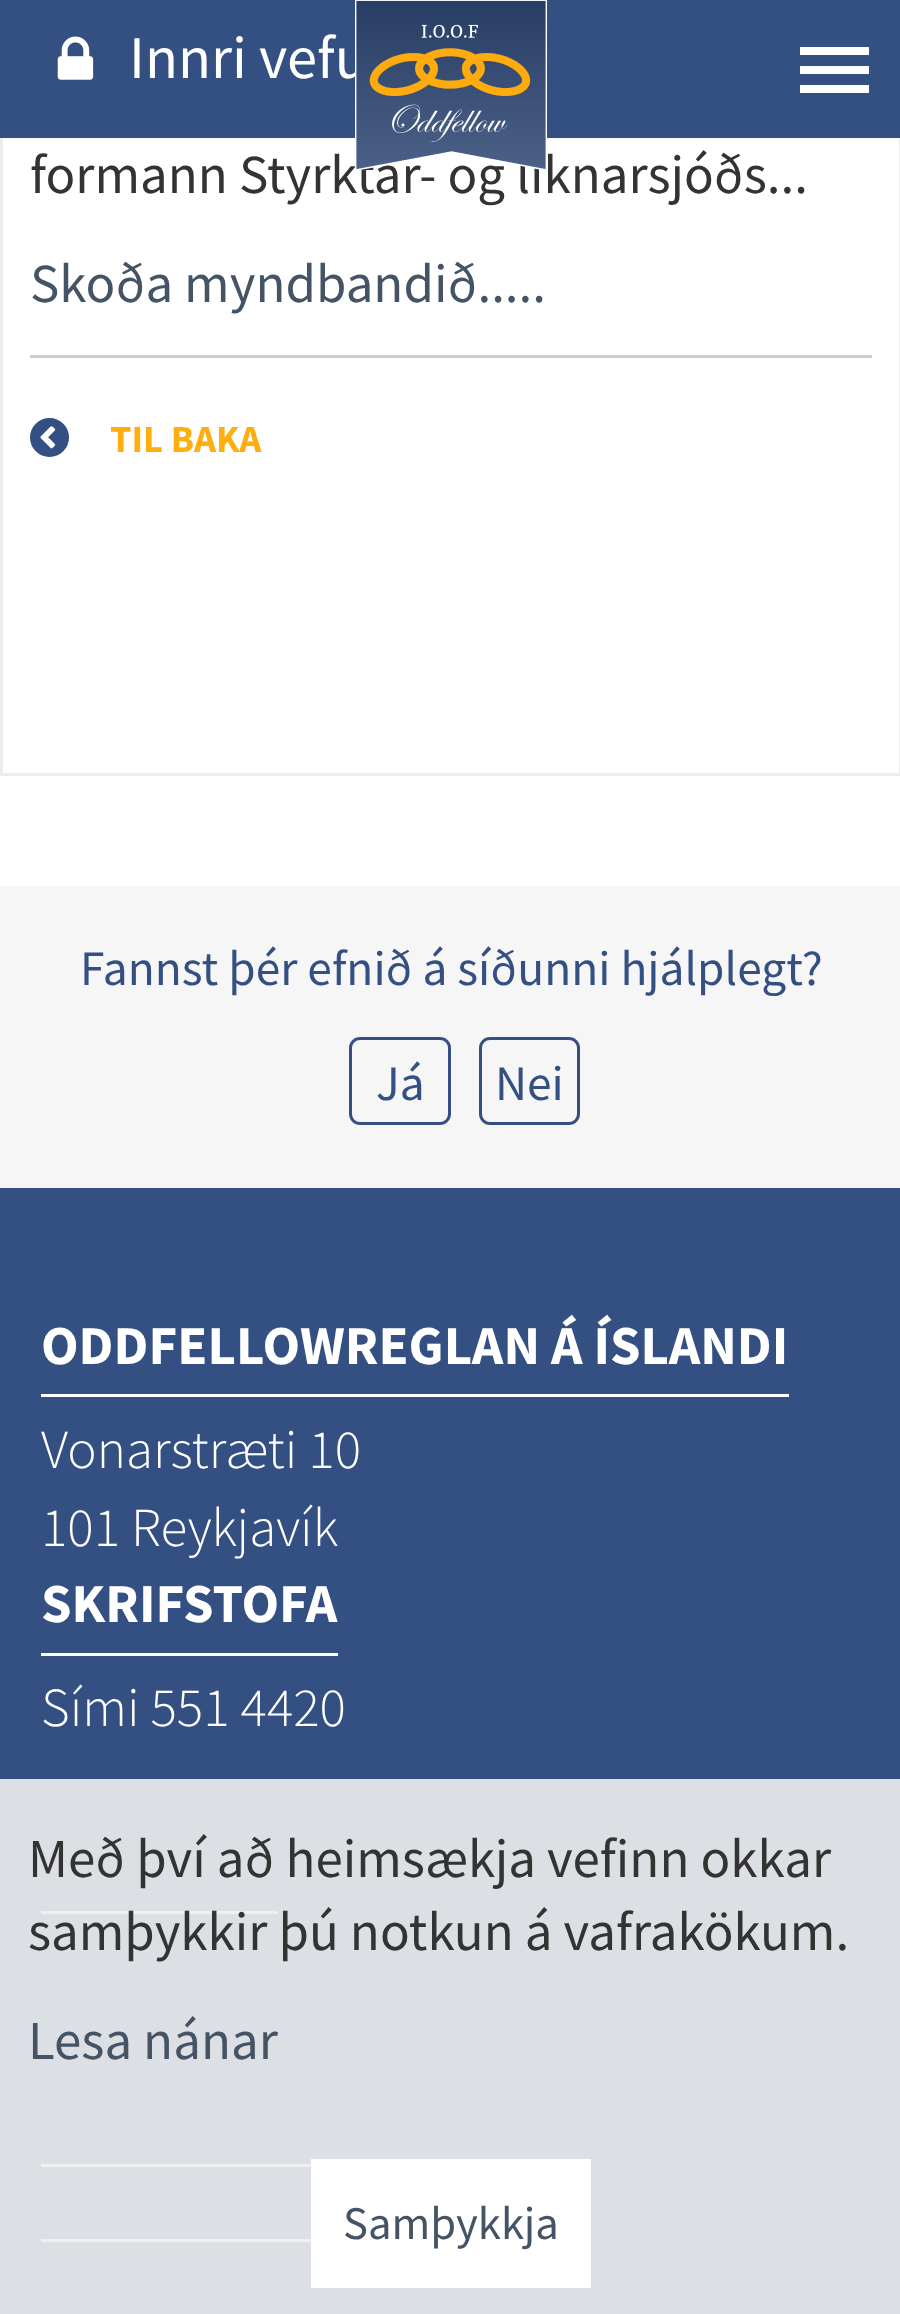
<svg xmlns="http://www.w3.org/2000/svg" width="900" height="2314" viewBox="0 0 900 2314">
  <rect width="100%" height="100%" fill="rgb(255,255,255)"/>
  <rect x="1.5" y="-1.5" width="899" height="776" fill="none" stroke="rgb(237,237,237)" stroke-width="3"/>
  <rect x="0" y="0" width="900" height="138" fill="rgb(52,80,130)"/>
  <image x="57" y="36" width="37" height="44" href="pic1.png"/>
  <text x="129" y="78" font-family="Source Sans Pro" font-size="60.5" fill="rgb(255,255,255)">Innri vefu</text>
  <text x="30" y="193" font-family="Source Sans Pro" font-size="55" fill="rgb(51,51,51)">formann Styrktar- og líknarsjóðs...</text>
  <image x="355" y="0" width="192" height="170" href="pic2.png"/>
  <rect x="800" y="47" width="69" height="8" fill="rgb(255,255,255)"/>
  <rect x="800" y="66" width="69" height="8" fill="rgb(255,255,255)"/>
  <rect x="800" y="85" width="69" height="8" fill="rgb(255,255,255)"/>
  <text x="30" y="302" font-family="Source Sans Pro" font-size="55" fill="rgb(69,84,101)">Skoða myndbandið.....</text>
  <rect x="30" y="355" width="842" height="3" fill="rgb(204,204,204)"/>
  <circle cx="49.5" cy="437.5" r="15.5" fill="none" stroke="rgb(52,80,130)" stroke-width="8"/>
  <image x="38" y="426" width="23" height="23" href="pic3.png"/>
  <text x="110" y="452" font-family="Source Sans Pro" font-size="38.5" font-weight="bold" fill="rgb(254,174,15)">TIL BAKA</text>
  <rect x="0" y="1188" width="900" height="1126" fill="rgb(52,80,130)"/>
  <rect x="0" y="886" width="900" height="302" fill="rgb(246,246,247)"/>
  <text x="80" y="985" font-family="Source Sans Pro" font-size="49.5" fill="rgb(52,80,130)">Fannst þér efnið á síðunni hjálplegt?</text>
  <rect x="350.5" y="1038.5" width="99" height="85" rx="9.5" fill="none" stroke="rgb(52,80,130)" stroke-width="3"/>
  <text x="376" y="1100" font-family="Source Sans Pro" font-size="49.5" fill="rgb(52,80,130)">Já</text>
  <rect x="480.5" y="1038.5" width="98" height="85" rx="9.5" fill="none" stroke="rgb(52,80,130)" stroke-width="3"/>
  <text x="495" y="1100" font-family="Source Sans Pro" font-size="49.5" fill="rgb(52,80,130)">Nei</text>
  <text x="41" y="1364" font-family="Source Sans Pro" font-size="55" font-weight="bold" fill="rgb(255,255,255)">ODDFELLOWREGLAN Á ÍSLANDI</text>
  <rect x="41" y="1394" width="748" height="3" fill="rgb(255,255,255)"/>
  <g font-family="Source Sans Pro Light" font-size="55" font-weight="300" fill="rgb(255,255,255)">
    <text>
      <tspan x="41" y="1468">Vonarstræti 10</tspan>
      <tspan x="41" y="1546">101 Reykjavík</tspan>
    </text>
  </g>
  <text x="41" y="1622" font-family="Source Sans Pro" font-size="55" font-weight="bold" fill="rgb(255,255,255)">SKRIFSTOFA</text>
  <rect x="41" y="1653" width="297" height="3" fill="rgb(255,255,255)"/>
  <text x="41" y="1726" font-family="Source Sans Pro Light" font-size="55" font-weight="300" fill="rgb(255,255,255)">Sími 551 4420</text>
  <rect x="41" y="1911" width="237" height="3" fill="rgb(255,255,255)"/>
  <rect x="41" y="2164" width="270" height="3" fill="rgb(255,255,255)"/>
  <rect x="41" y="2239" width="270" height="3" fill="rgb(255,255,255)"/>
  <rect x="0" y="1779" width="900" height="535" fill="rgba(238,238,238,0.9)"/>
  <g font-family="Source Sans Pro" font-size="55" fill="rgb(51,51,51)">
    <text>
      <tspan x="28" y="1877">Með því að heimsækja vefinn okkar</tspan>
      <tspan x="28" y="1950">samþykkir þú notkun á vafrakökum.</tspan>
    </text>
  </g>
  <text x="28" y="2059" font-family="Source Sans Pro" font-size="55" fill="rgb(69,84,101)">Lesa nánar</text>
  <rect x="311" y="2159" width="280" height="129" fill="rgb(255,255,255)"/>
  <text x="343" y="2239" font-family="Source Sans Pro" font-size="46.75" fill="rgb(69,84,101)">Samþykkja</text>
</svg>
